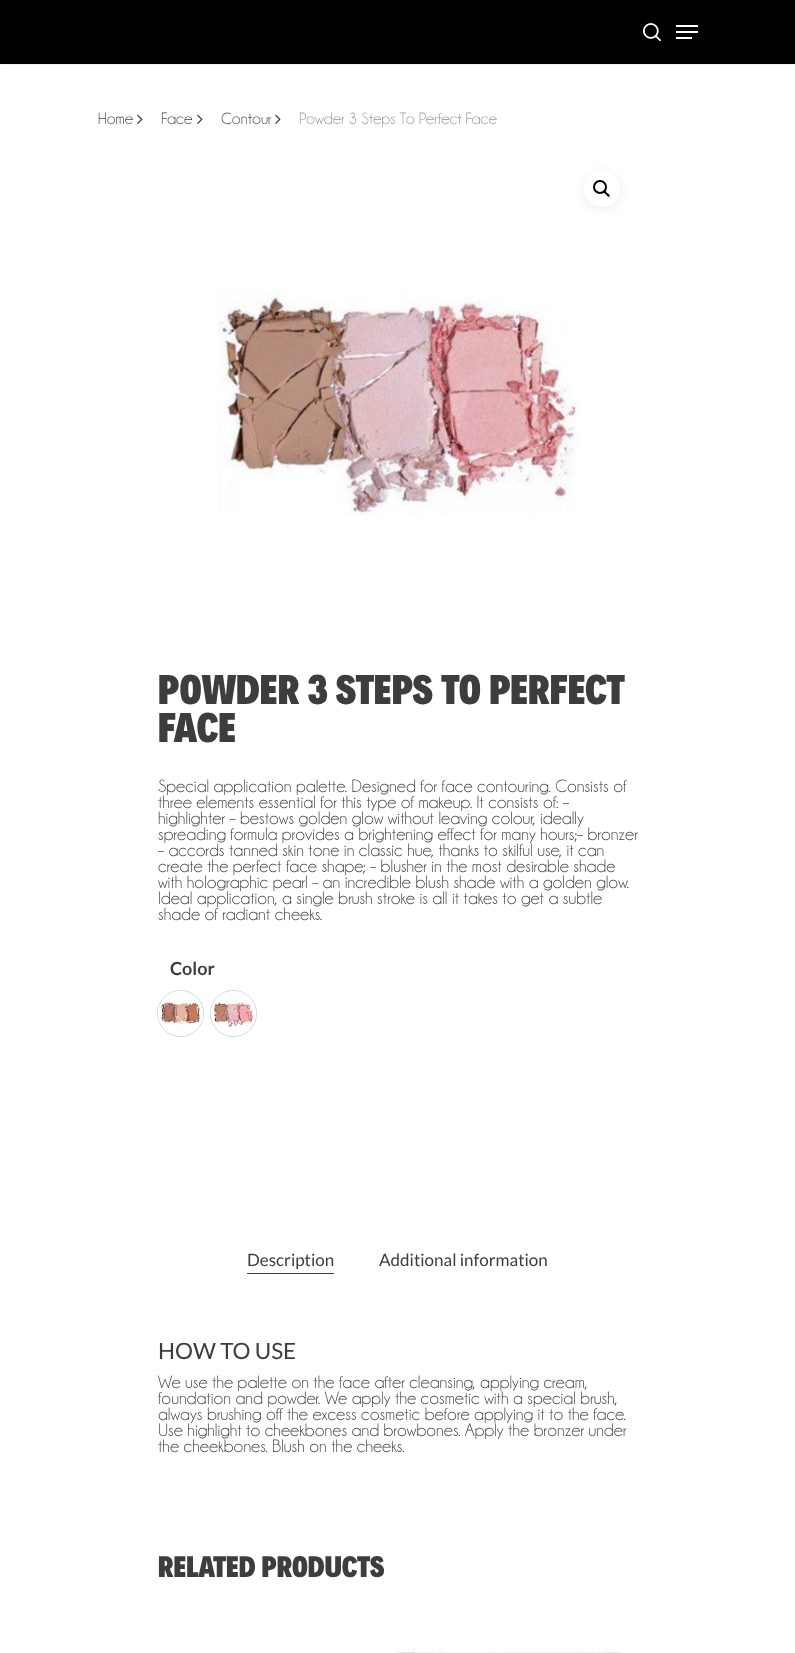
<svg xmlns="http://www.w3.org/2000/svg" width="795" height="1653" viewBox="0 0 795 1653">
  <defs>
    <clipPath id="clip1"><rect x="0" y="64" width="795" height="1"/></clipPath>
  </defs>
  <rect width="100%" height="100%" fill="rgb(255,255,255)"/>
  <rect x="0" y="0" width="795" height="64" fill="rgb(0,0,0)"/>
  <g clip-path="url(#clip1)">
    <rect x="0" y="0" width="795" height="64" fill="rgba(0,0,0,0.14)" filter="blur(1px)"/>
  </g>
  <image x="98" y="12" width="72" height="40" href="pic1.png"/>
  <image x="643" y="23" width="18" height="19" href="pic2.png"/>
  <rect x="676" y="25" width="22" height="2" fill="rgb(255,255,255)"/>
  <rect x="676" y="37" width="16" height="2" fill="rgb(255,255,255)"/>
  <rect x="676" y="31" width="22" height="2" fill="rgb(255,255,255)"/>
  <text x="98" y="124" font-family="'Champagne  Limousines'" font-size="16.5" fill="rgb(61,61,61)">Home</text>
  <image x="137" y="114" width="6" height="10" href="pic3.png"/>
  <text x="161" y="124" font-family="'Champagne  Limousines'" font-size="16.5" fill="rgb(61,61,61)">Face</text>
  <image x="197" y="114" width="6" height="10" href="pic3.png"/>
  <text x="221" y="124" font-family="'Champagne  Limousines'" font-size="16.5" fill="rgb(61,61,61)">Contour</text>
  <image x="275" y="114" width="6" height="10" href="pic3.png"/>
  <text x="299" y="124" font-family="'Champagne  Limousines'" font-size="16.5" fill="rgb(148,148,148)">Powder 3 Steps To Perfect Face</text>
  <rect x="584" y="173" width="36" height="36" rx="18" fill="rgba(0,0,0,0.08)" filter="blur(6px)"/>
  <circle cx="602" cy="189" r="18" fill="rgb(255,255,255)"/>
  <circle cx="600" cy="187" r="6" fill="none" stroke="rgb(0,0,0)" stroke-width="2"/>
  <path d="M603.5 190.5C605 189.5 606.5 192 607 193C608 193.5 610.5 195 609.5 196.5C608 197.5 606.5 195 606 194.5C605 193.5 602.5 192 603.5 190.5Z" fill="rgb(0,0,0)"/>
  <image x="217" y="289" width="363" height="227" href="pic4.png"/>
  <g font-family="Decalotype" font-size="42" font-weight="900" fill="rgb(61,61,61)">
    <text>
      <tspan x="158" y="704">POWDER 3 STEPS TO PERFECT</tspan>
      <tspan x="158" y="742">FACE</tspan>
    </text>
  </g>
  <g font-family="'Champagne  Limousines'" font-size="18" fill="rgb(61,61,61)">
    <text>
      <tspan x="158" y="792">Special application palette. Designed for face contouring. Consists of</tspan>
      <tspan x="158" y="808">three elements essential for this type of makeup. It consists of: –</tspan>
      <tspan x="158" y="824">highlighter – bestows golden glow without leaving colour, ideally</tspan>
      <tspan x="158" y="840">spreading formula provides a brightening effect for many hours;– bronzer</tspan>
      <tspan x="158" y="856">– accords tanned skin tone in classic hue, thanks to skilful use, it can</tspan>
      <tspan x="158" y="872">create the perfect face shape; – blusher in the most desirable shade</tspan>
      <tspan x="158" y="888">with holographic pearl – an incredible blush shade with a golden glow.</tspan>
      <tspan x="158" y="904">Ideal application, a single brush stroke is all it takes to get a subtle</tspan>
      <tspan x="158" y="920">shade of radiant cheeks.</tspan>
    </text>
  </g>
  <text x="170" y="975" font-family="Lato" font-size="18" font-weight="bold" fill="rgb(61,61,61)">Color</text>
  <circle cx="180.5" cy="1013.5" r="23" fill="none" stroke="rgb(209,215,218)"/>
  <circle cx="180.5" cy="1013.5" r="22.5" fill="rgb(255,255,255)"/>
  <image x="160" y="1002" width="40" height="23" href="pic5.png"/>
  <circle cx="233.5" cy="1013.5" r="23" fill="none" stroke="rgb(209,215,218)"/>
  <circle cx="233.5" cy="1013.5" r="22.5" fill="rgb(255,255,255)"/>
  <image x="213" y="1002" width="41" height="26" href="pic6.png"/>
  <rect x="247" y="1273" width="87" height="1" fill="rgb(61,61,61)"/>
  <g font-family="Lato" font-size="17" fill="rgb(61,61,61)">
    <text x="247" y="1266">Description</text>
    <text x="379" y="1266">Additional information</text>
  </g>
  <text x="158" y="1359" font-family="Lato" font-size="22.5" fill="rgb(61,61,61)">HOW TO USE</text>
  <g font-family="'Champagne  Limousines'" font-size="18" fill="rgb(61,61,61)">
    <text>
      <tspan x="158" y="1388">We use the palette on the face after cleansing, applying cream,</tspan>
      <tspan x="158" y="1404">foundation and powder. We apply the cosmetic with a special brush,</tspan>
      <tspan x="158" y="1420">always brushing off the excess cosmetic before applying it to the face.</tspan>
      <tspan x="158" y="1436">Use highlight to cheekbones and browbones. Apply the bronzer under</tspan>
      <tspan x="158" y="1452">the cheekbones. Blush on the cheeks.</tspan>
    </text>
  </g>
  <text x="158" y="1577" font-family="Decalotype" font-size="30" font-weight="900" fill="rgb(61,61,61)">RELATED PRODUCTS</text>
  <image x="394" y="1648" width="229" height="5" href="pic7.png"/>
</svg>
